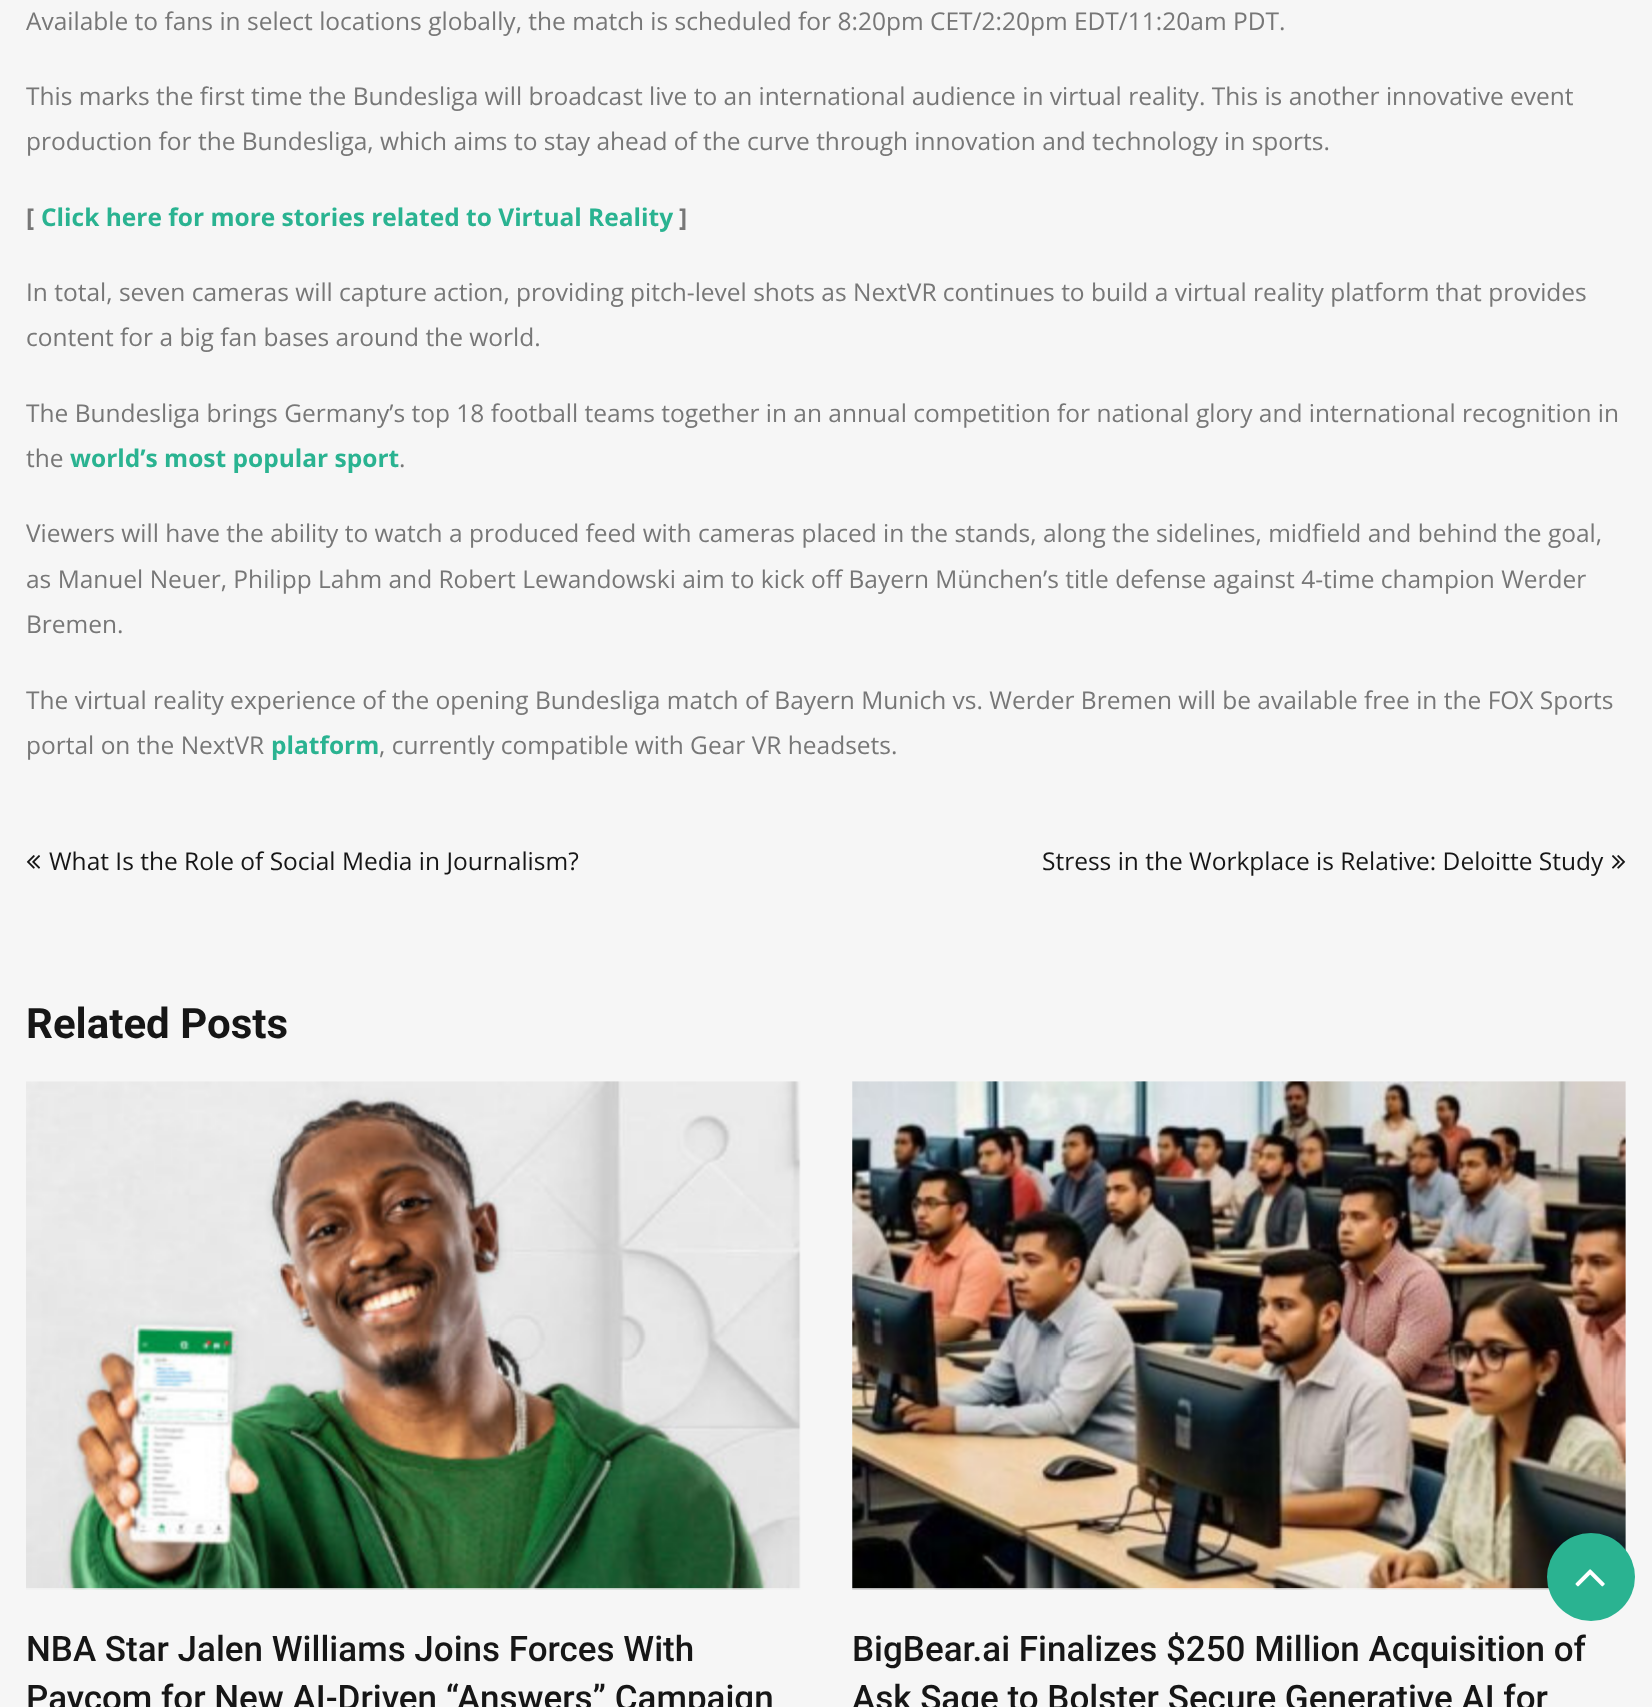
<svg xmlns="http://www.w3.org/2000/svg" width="1652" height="1707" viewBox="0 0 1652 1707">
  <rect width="100%" height="100%" fill="rgb(246,246,246)"/>
  <g font-family="Open Sans" font-size="24.5" fill="rgb(119,119,119)">
    <text x="26" y="30">Available to fans in select locations globally, the match is scheduled for 8:20pm CET/2:20pm EDT/11:20am PDT.</text>
    <text>
      <tspan x="26" y="105">This marks the first time the Bundesliga will broadcast live to an international audience in virtual reality. This is another innovative event</tspan>
      <tspan x="26" y="150">production for the Bundesliga, which aims to stay ahead of the curve through innovation and technology in sports.</tspan>
    </text>
  </g>
  <text x="26" y="226" font-family="Open Sans" font-size="24.5" font-weight="bold" fill="rgb(119,119,119)">[</text>
  <text x="41" y="226" font-family="Open Sans" font-size="24.5" font-weight="bold" fill="rgb(42,179,145)">Click here for more stories related to Virtual Reality</text>
  <text x="679" y="226" font-family="Open Sans" font-size="24.5" font-weight="bold" fill="rgb(119,119,119)">]</text>
  <g font-family="Open Sans" font-size="24.5" fill="rgb(119,119,119)">
    <text>
      <tspan x="26" y="301">In total, seven cameras will capture action, providing pitch-level shots as NextVR continues to build a virtual reality platform that provides</tspan>
      <tspan x="26" y="346">content for a big fan bases around the world.</tspan>
    </text>
    <text>
      <tspan x="26" y="422">The Bundesliga brings Germany’s top 18 football teams together in an annual competition for national glory and international recognition in</tspan>
      <tspan x="26" y="467">the</tspan>
    </text>
  </g>
  <text x="70" y="467" font-family="Open Sans" font-size="24.5" font-weight="bold" fill="rgb(42,179,145)">world’s most popular sport</text>
  <g font-family="Open Sans" font-size="24.5" fill="rgb(119,119,119)">
    <text x="399" y="467">.</text>
    <text>
      <tspan x="26" y="542">Viewers will have the ability to watch a produced feed with cameras placed in the stands, along the sidelines, midfield and behind the goal,</tspan>
      <tspan x="26" y="588">as Manuel Neuer, Philipp Lahm and Robert Lewandowski aim to kick off Bayern München’s title defense against 4-time champion Werder</tspan>
      <tspan x="26" y="633">Bremen.</tspan>
    </text>
    <text>
      <tspan x="26" y="709">The virtual reality experience of the opening Bundesliga match of Bayern Munich vs. Werder Bremen will be available free in the FOX Sports</tspan>
      <tspan x="26" y="754">portal on the NextVR</tspan>
    </text>
  </g>
  <text x="271" y="754" font-family="Open Sans" font-size="24.5" font-weight="bold" fill="rgb(42,179,145)">platform</text>
  <text x="379" y="754" font-family="Open Sans" font-size="24.5" fill="rgb(119,119,119)">, currently compatible with Gear VR headsets.</text>
  <image x="26" y="855" width="14" height="14" href="pic1.png"/>
  <g font-family="Open Sans" font-size="24.5" fill="rgb(22,22,22)">
    <text x="49" y="870">What Is the Role of Social Media in Journalism?</text>
    <text x="1042" y="870">Stress in the Workplace is Relative: Deloitte Study</text>
  </g>
  <image x="1612" y="855" width="14" height="14" href="pic2.png"/>
  <text x="26" y="1038" font-family="Roboto" font-size="42" font-weight="bold" fill="rgb(22,22,22)">Related Posts</text>
  <image x="26" y="1081" width="775" height="509" href="pic3.png"/>
  <g font-family="Roboto" font-size="35" font-weight="500" fill="rgb(22,22,22)">
    <text>
      <tspan x="26" y="1661">NBA Star Jalen Williams Joins Forces With</tspan>
      <tspan x="26" y="1710">Paycom for New AI-Driven “Answers” Campaign</tspan>
    </text>
  </g>
  <image x="852" y="1081" width="774" height="509" href="pic4.png"/>
  <g font-family="Roboto" font-size="35" font-weight="500" fill="rgb(22,22,22)">
    <text>
      <tspan x="852" y="1661">BigBear.ai Finalizes $250 Million Acquisition of</tspan>
      <tspan x="852" y="1710">Ask Sage to Bolster Secure Generative AI for</tspan>
    </text>
  </g>
  <circle cx="1591" cy="1577" r="44" fill="rgb(42,179,145)"/>
  <image x="1575" y="1569" width="30" height="18" href="pic5.png"/>
</svg>
